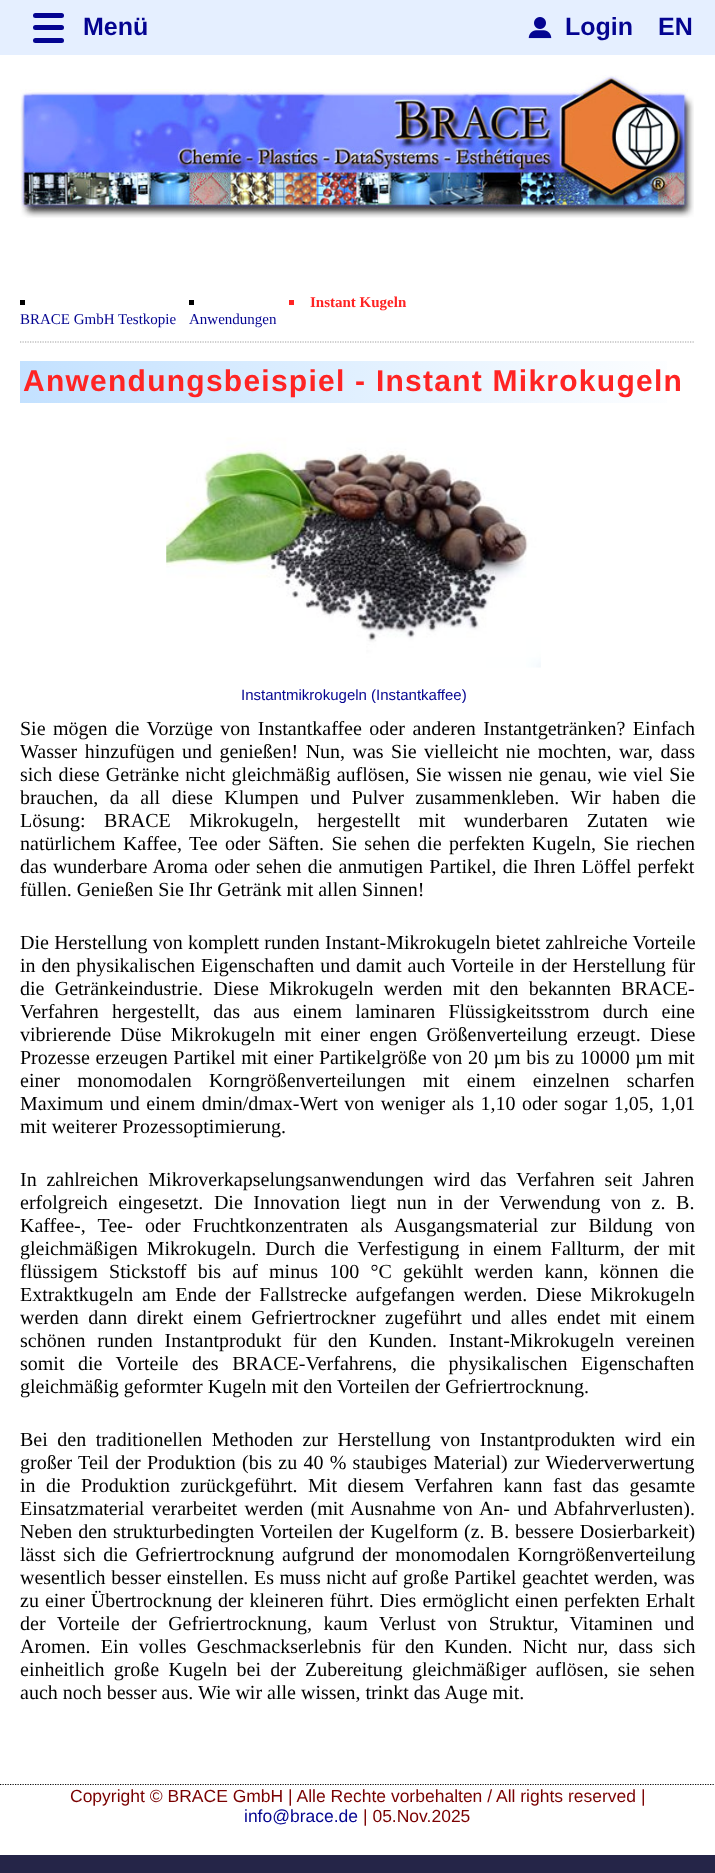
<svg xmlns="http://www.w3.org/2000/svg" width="715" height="1873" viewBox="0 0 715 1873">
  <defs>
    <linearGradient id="g1" gradientUnits="userSpaceOnUse" x1="20" y1="382" x2="695" y2="382"><stop offset="0" stop-color="rgb(195,225,255)"/><stop offset="1" stop-color="rgb(255,255,255)"/></linearGradient>
  </defs>
  <rect width="100%" height="100%" fill="rgb(255,255,255)"/>
  <rect x="0" y="0" width="715" height="55" fill="rgb(229,239,255)"/>
  <rect x="33" y="13" width="31" height="5" rx="2.5" fill="rgb(4,4,145)"/>
  <rect x="33" y="25" width="31" height="5" rx="2.5" fill="rgb(4,4,145)"/>
  <text x="83" y="35" font-family="Liberation Sans" font-size="25" font-weight="bold" fill="rgb(4,4,145)">Menü</text>
  <rect x="33" y="38" width="31" height="5" rx="2.5" fill="rgb(4,4,145)"/>
  <image x="20" y="75" width="674" height="143" href="pic1.png"/>
  <image x="528" y="17" width="24" height="22" href="pic2.png"/>
  <g font-family="Liberation Sans" font-size="25" font-weight="bold" fill="rgb(4,4,145)">
    <text x="565" y="35">Login</text>
    <text x="658" y="35">EN</text>
  </g>
  <path d="M20 342H695" fill="none" stroke="rgb(160,160,160)" stroke-width="1.2" stroke-dasharray="1.25 1.25"/>
  <rect x="289" y="300" width="5" height="5" fill="rgb(255,36,36)"/>
  <text x="310" y="307" font-family="Liberation Serif" font-size="15" font-weight="bold" fill="rgb(255,36,36)">Instant Kugeln</text>
  <rect x="20" y="300" width="5" height="5" fill="rgb(0,0,0)"/>
  <text x="20" y="324" font-family="Liberation Serif" font-size="15" fill="rgb(4,4,145)">BRACE GmbH Testkopie</text>
  <rect x="189" y="300" width="5" height="5" fill="rgb(0,0,0)"/>
  <text x="189" y="324" font-family="Liberation Serif" font-size="15" fill="rgb(4,4,145)">Anwendungen</text>
  <rect x="20" y="361" width="647" height="42" fill="url(#g1)"/>
  <text x="23" y="391" font-family="Liberation Sans" font-size="30" font-weight="bold" letter-spacing="1.25" fill="rgb(255,36,36)">Anwendungsbeispiel - Instant Mikrokugeln</text>
  <image x="166" y="437" width="375" height="231" href="pic3.png"/>
  <text x="241" y="700" font-family="Liberation Sans" font-size="15" fill="rgb(4,4,145)">Instantmikrokugeln (Instantkaffee)</text>
  <g font-family="Liberation Serif" font-size="20" fill="rgb(0,0,0)">
    <text>
      <tspan x="20" y="735" word-spacing="2.5">Sie mögen die Vorzüge von Instantkaffee oder anderen Instantgetränken? Einfach</tspan>
      <tspan x="20" y="758" word-spacing="2.4">Wasser hinzufügen und genießen! Nun, was Sie vielleicht nie mochten, war, dass</tspan>
      <tspan x="20" y="781" word-spacing="1.25">sich diese Getränke nicht gleichmäßig auflösen, Sie wissen nie genau, wie viel Sie</tspan>
      <tspan x="20" y="804" word-spacing="6.5">brauchen, da all diese Klumpen und Pulver zusammenkleben. Wir haben die</tspan>
      <tspan x="20" y="827" word-spacing="13.5">Lösung: BRACE Mikrokugeln, hergestellt mit wunderbaren Zutaten wie</tspan>
      <tspan x="20" y="850" word-spacing="2.4">natürlichem Kaffee, Tee oder Säften. Sie sehen die perfekten Kugeln, Sie riechen</tspan>
      <tspan x="20" y="873" word-spacing="1.25">das wunderbare Aroma oder sehen die anmutigen Partikel, die Ihren Löffel perfekt</tspan>
      <tspan x="20" y="896">füllen. Genießen Sie Ihr Getränk mit allen Sinnen!</tspan>
    </text>
    <text>
      <tspan x="20" y="949" word-spacing="0.25">Die Herstellung von komplett runden Instant-Mikrokugeln bietet zahlreiche Vorteile</tspan>
      <tspan x="20" y="972" word-spacing="0.9">in den physikalischen Eigenschaften und damit auch Vorteile in der Herstellung für</tspan>
      <tspan x="20" y="995" word-spacing="5.25">die Getränkeindustrie. Diese Mikrokugeln werden mit den bekannten BRACE-</tspan>
      <tspan x="20" y="1018" word-spacing="8.25">Verfahren hergestellt, das aus einem laminaren Flüssigkeitsstrom durch eine</tspan>
      <tspan x="20" y="1041" word-spacing="4.25">vibrierende Düse Mikrokugeln mit einer engen Größenverteilung erzeugt. Diese</tspan>
      <tspan x="20" y="1064" word-spacing="0.6">Prozesse erzeugen Partikel mit einer Partikelgröße von 20 µm bis zu 10000 µm mit</tspan>
      <tspan x="20" y="1087" word-spacing="12.25">einer monomodalen Korngrößenverteilungen mit einem einzelnen scharfen</tspan>
      <tspan x="20" y="1110" word-spacing="1.5">Maximum und einem dmin/dmax-Wert von weniger als 1,10 oder sogar 1,05, 1,01</tspan>
      <tspan x="20" y="1133">mit weiterer Prozessoptimierung.</tspan>
    </text>
    <text>
      <tspan x="20" y="1186" word-spacing="4.75">In zahlreichen Mikroverkapselungsanwendungen wird das Verfahren seit Jahren</tspan>
      <tspan x="20" y="1209" word-spacing="5.6">erfolgreich eingesetzt. Die Innovation liegt nun in der Verwendung von z. B.</tspan>
      <tspan x="20" y="1232" word-spacing="7.25">Kaffee-, Tee- oder Fruchtkonzentraten als Ausgangsmaterial zur Bildung von</tspan>
      <tspan x="20" y="1255" word-spacing="4">gleichmäßigen Mikrokugeln. Durch die Verfestigung in einem Fallturm, der mit</tspan>
      <tspan x="20" y="1278" word-spacing="6.25">flüssigem Stickstoff bis auf minus 100 °C gekühlt werden kann, können die</tspan>
      <tspan x="20" y="1301" word-spacing="3.75">Extraktkugeln am Ende der Fallstrecke aufgefangen werden. Diese Mikrokugeln</tspan>
      <tspan x="20" y="1324" word-spacing="4.5">werden dann direkt einem Gefriertrockner zugeführt und alles endet mit einem</tspan>
      <tspan x="20" y="1347" word-spacing="6.75">schönen runden Instantprodukt für den Kunden. Instant-Mikrokugeln vereinen</tspan>
      <tspan x="20" y="1370" word-spacing="8.5">somit die Vorteile des BRACE-Verfahrens, die physikalischen Eigenschaften</tspan>
      <tspan x="20" y="1393">gleichmäßig geformter Kugeln mit den Vorteilen der Gefriertrocknung.</tspan>
    </text>
    <text>
      <tspan x="20" y="1446" word-spacing="4.5">Bei den traditionellen Methoden zur Herstellung von Instantprodukten wird ein</tspan>
      <tspan x="20" y="1469" word-spacing="1.25">großer Teil der Produktion (bis zu 40 % staubiges Material) zur Wiederverwertung</tspan>
      <tspan x="20" y="1492" word-spacing="5.5">in die Produktion zurückgeführt. Mit diesem Verfahren kann fast das gesamte</tspan>
      <tspan x="20" y="1515" word-spacing="2.25">Einsatzmaterial verarbeitet werden (mit Ausnahme von An- und Abfahrverlusten).</tspan>
      <tspan x="20" y="1538" word-spacing="1">Neben den strukturbedingten Vorteilen der Kugelform (z. B. bessere Dosierbarkeit)</tspan>
      <tspan x="20" y="1561" word-spacing="2.75">lässt sich die Gefriertrocknung aufgrund der monomodalen Korngrößenverteilung</tspan>
      <tspan x="20" y="1584" word-spacing="0.6">wesentlich besser einstellen. Es muss nicht auf große Partikel geachtet werden, was</tspan>
      <tspan x="20" y="1607" word-spacing="1">zu einer Übertrocknung der kleineren führt. Dies ermöglicht einen perfekten Erhalt</tspan>
      <tspan x="20" y="1630" word-spacing="6.5">der Vorteile der Gefriertrocknung, kaum Verlust von Struktur, Vitaminen und</tspan>
      <tspan x="20" y="1653" word-spacing="5.25">Aromen. Ein volles Geschmackserlebnis für den Kunden. Nicht nur, dass sich</tspan>
      <tspan x="20" y="1676" word-spacing="4.25">einheitlich große Kugeln bei der Zubereitung gleichmäßiger auflösen, sie sehen</tspan>
      <tspan x="20" y="1699">auch noch besser aus. Wie wir alle wissen, trinkt das Auge mit.</tspan>
    </text>
  </g>
  <path d="M0 1784.5H715" fill="none" stroke="rgb(12,12,12)" stroke-width="1.2" stroke-dasharray="1.25 1.25"/>
  <text x="70" y="1802" font-family="Liberation Sans" font-size="17.5" fill="rgb(122,0,0)">Copyright © BRACE GmbH | Alle Rechte vorbehalten / All rights reserved |</text>
  <text x="244" y="1822" font-family="Liberation Sans" font-size="17.5" fill="rgb(4,4,145)">info@brace.de</text>
  <text x="363" y="1822" font-family="Liberation Sans" font-size="17.5" fill="rgb(122,0,0)">| 05.Nov.2025</text>
  <rect x="0" y="1855" width="715" height="18" fill="rgb(37,37,72)"/>
</svg>
